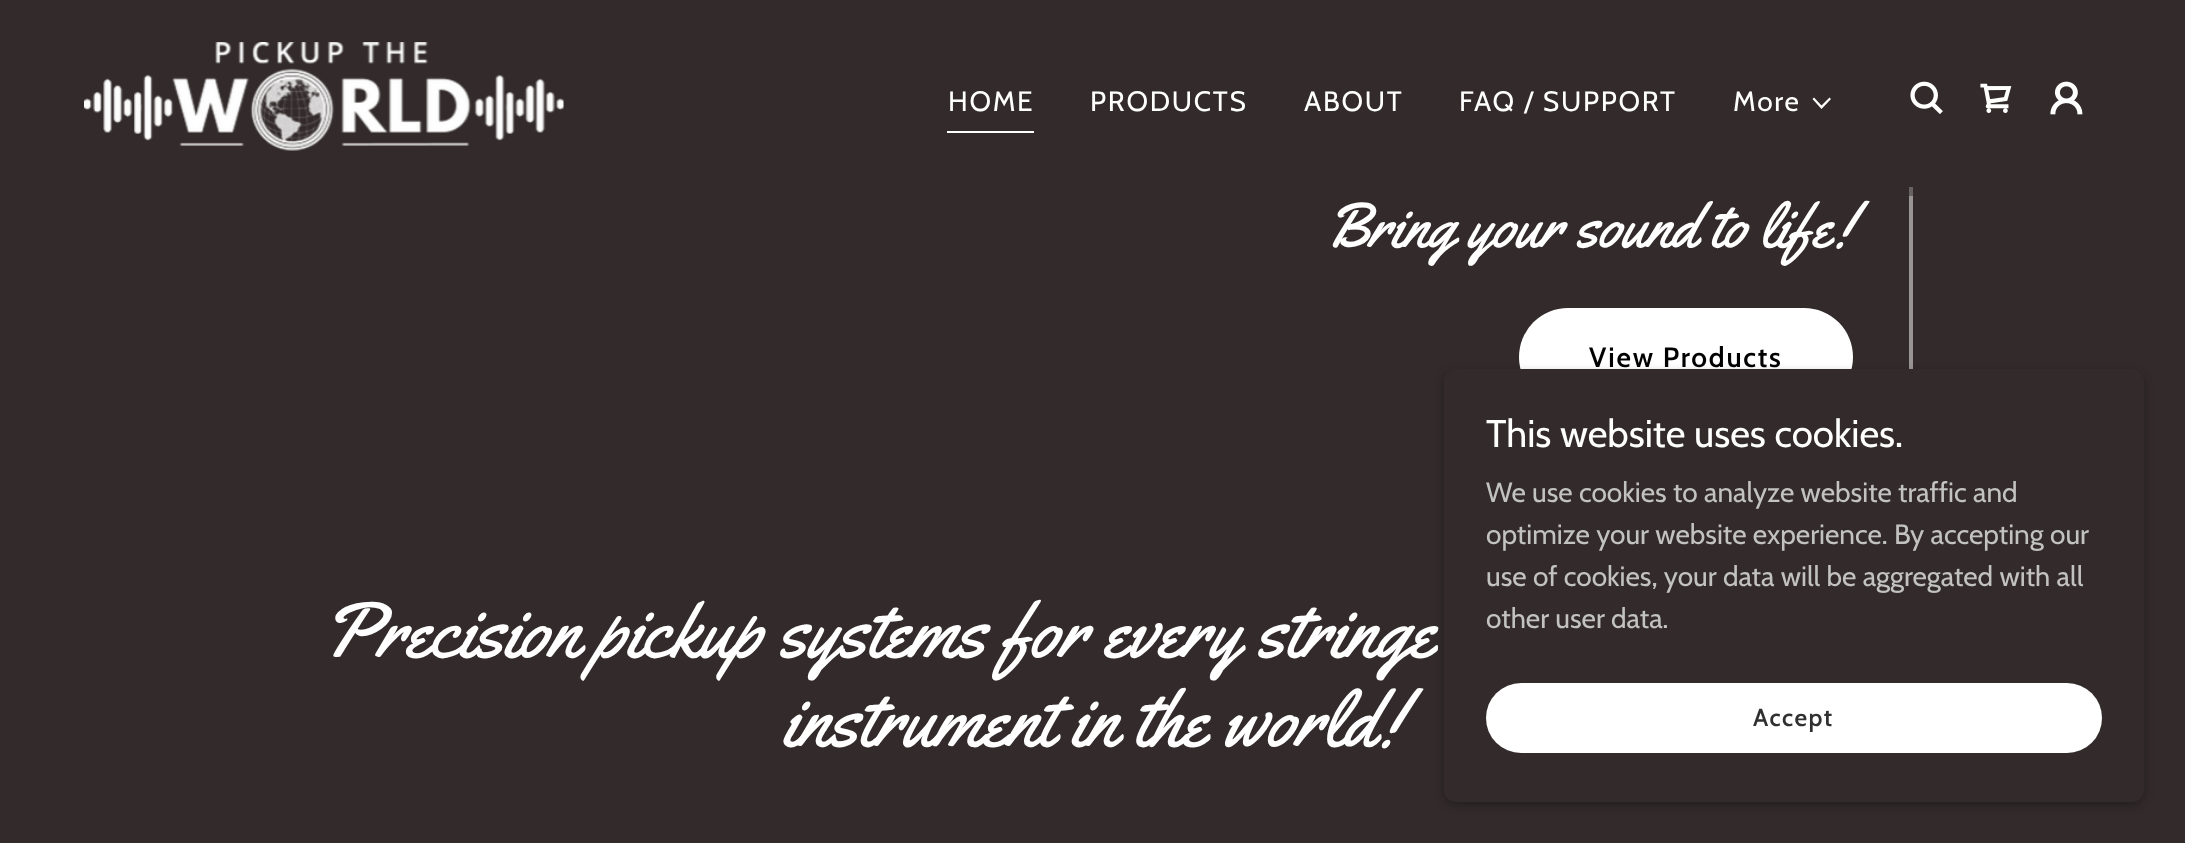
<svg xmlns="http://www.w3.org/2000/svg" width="2185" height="843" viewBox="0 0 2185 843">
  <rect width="100%" height="100%" fill="rgb(51,43,43)"/>
  <image x="84" y="42" width="480" height="109" href="pic1.png"/>
  <rect x="947" y="131" width="87" height="2" fill="rgb(255,255,255)"/>
  <g font-family="Cabin" font-size="28" letter-spacing="1.75" fill="rgb(255,255,255)">
    <text x="948" y="111">HOME</text>
    <text x="1090" y="111">PRODUCTS</text>
    <text x="1304" y="111">ABOUT</text>
    <text x="1459" y="111">FAQ / SUPPORT</text>
    <text x="1733" y="111">More</text>
  </g>
  <path d="M1829.5 97.5L1821.5 105.5L1814 97.5L1812.5 99L1821.5 109L1831 99Z" fill="rgb(255,255,255)" fill-rule="evenodd"/>
  <image x="1910" y="81" width="33" height="33" href="pic2.png"/>
  <image x="1980" y="83" width="32" height="30" href="pic3.png"/>
  <image x="2050" y="81" width="33" height="34" href="pic4.png"/>
  <rect x="1909" y="196" width="4" height="173" fill="rgb(153,149,149)"/>
  <rect x="1909" y="187" width="4" height="9" fill="rgb(104,99,99)"/>
  <text x="1326" y="247" font-family="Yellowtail" font-size="63" fill="rgb(255,255,255)">Bring your sound to life!</text>
  <rect x="1519" y="308" width="334" height="98" rx="49" fill="rgb(255,255,255)"/>
  <text x="1589" y="367" font-family="Cabin" font-size="28" font-weight="600" letter-spacing="1.75" fill="rgb(0,0,0)">View Products</text>
  <g font-family="Yellowtail" font-size="78.75" fill="rgb(255,255,255)">
    <text x="321" y="657">Precision pickup systems for every stringe</text>
    <text x="783" y="746">instrument in the world!</text>
  </g>
  <rect x="1444" y="373" width="700" height="432" rx="12" fill="rgba(0,0,0,0.3)" filter="blur(5px)"/>
  <rect x="1444" y="369" width="700" height="433" rx="12" fill="rgb(51,43,43)"/>
  <text x="1486" y="447" font-family="Cabin" font-size="38.5" fill="rgb(255,255,255)">This website uses cookies.</text>
  <g font-family="Cabin" font-size="28" fill="rgb(195,194,194)">
    <text>
      <tspan x="1486" y="502">We use cookies to analyze website traffic and</tspan>
      <tspan x="1486" y="544">optimize your website experience. By accepting our</tspan>
      <tspan x="1486" y="586">use of cookies, your data will be aggregated with all</tspan>
      <tspan x="1486" y="628">other user data.</tspan>
    </text>
  </g>
  <rect x="1486" y="683" width="616" height="70" rx="35" fill="rgb(255,255,255)"/>
  <text x="1753" y="726" font-family="Cabin" font-size="24.5" font-weight="600" letter-spacing="1.5" fill="rgb(48,48,48)">Accept</text>
</svg>
